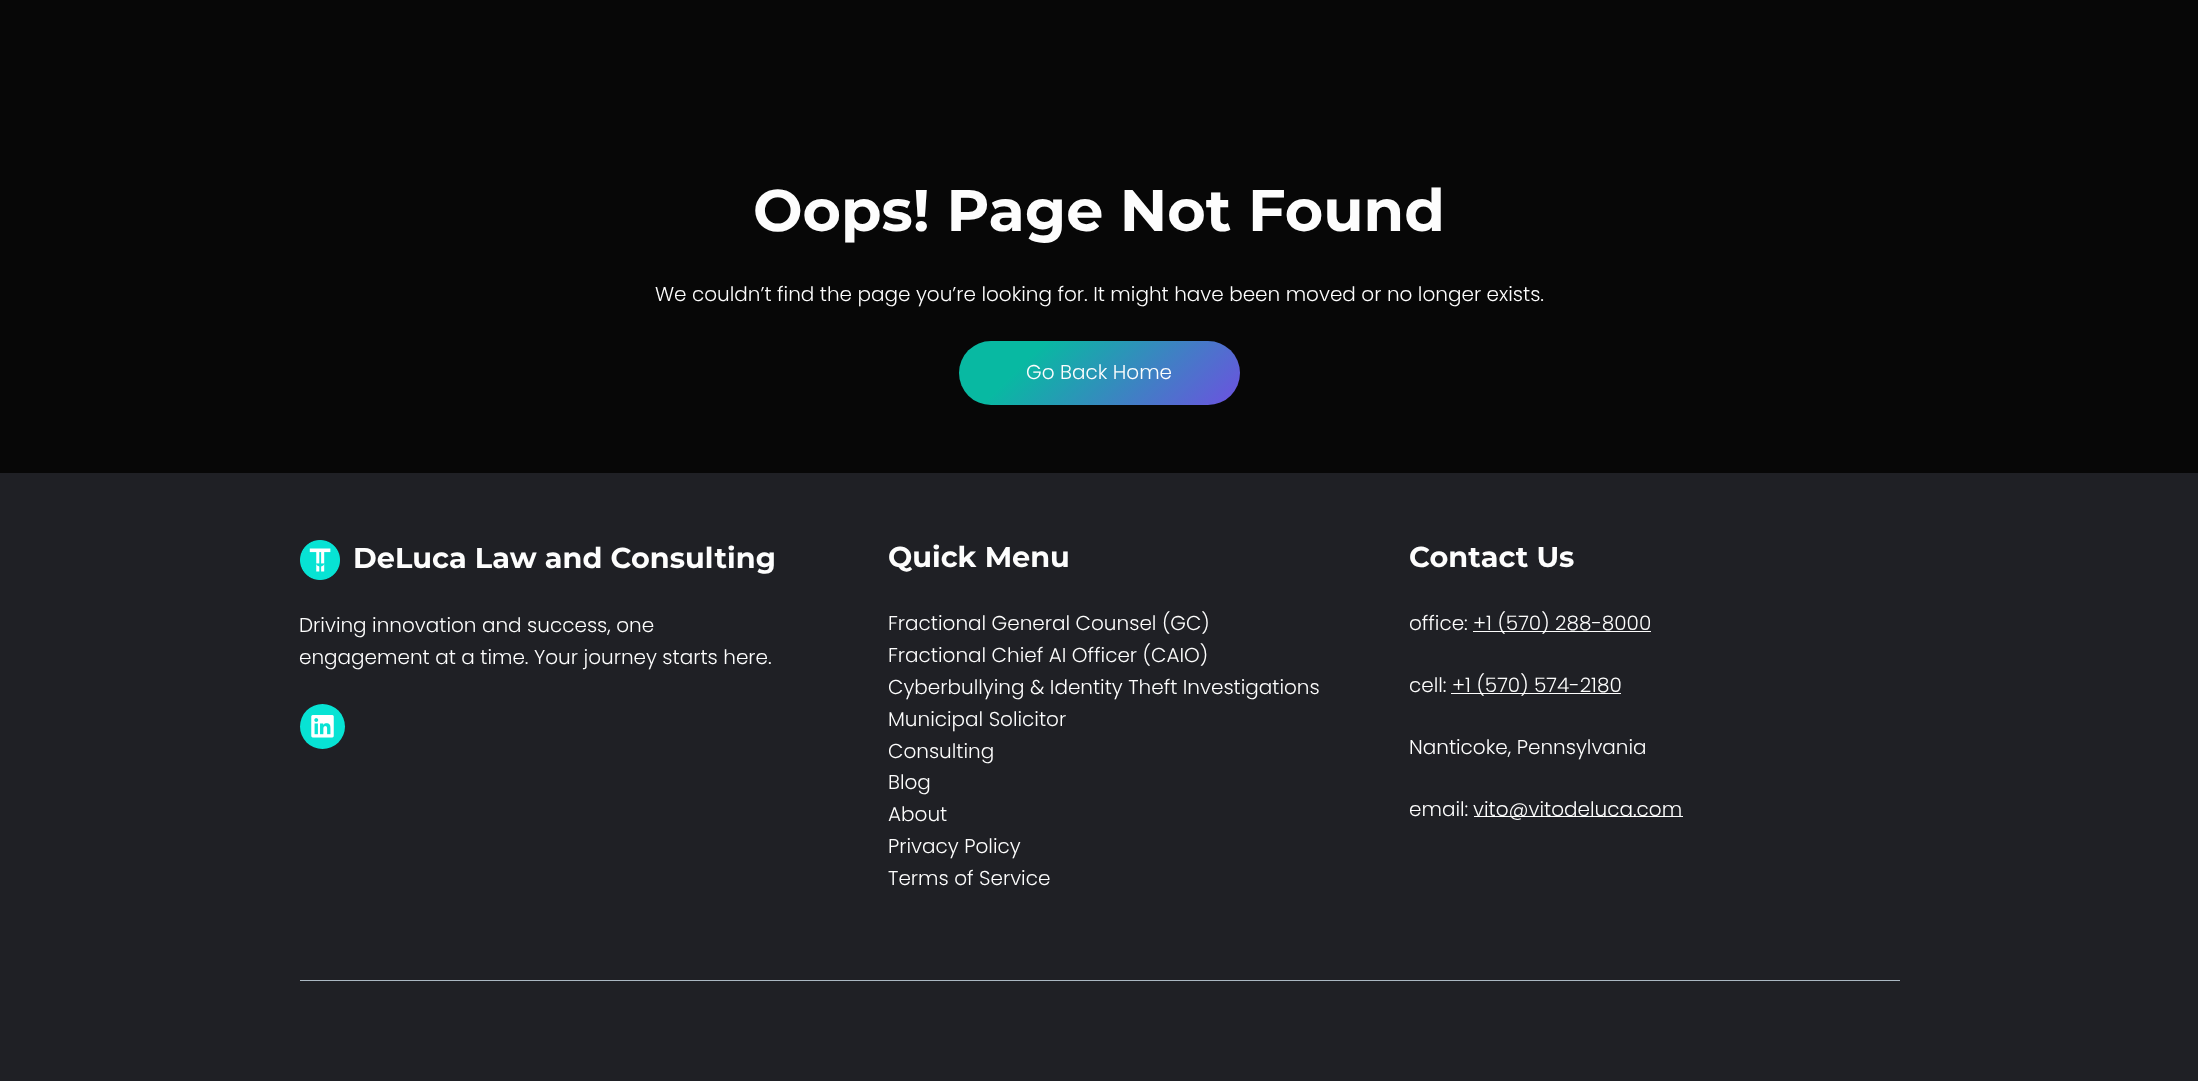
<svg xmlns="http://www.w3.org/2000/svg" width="2198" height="1081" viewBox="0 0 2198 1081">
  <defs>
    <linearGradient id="g1" gradientUnits="userSpaceOnUse" x1="1013" y1="287" x2="1186" y2="459"><stop offset="0.25" stop-color="rgb(8,185,162)"/><stop offset="1" stop-color="rgb(109,81,224)"/></linearGradient>
  </defs>
  <rect width="100%" height="100%" fill="rgb(7,7,7)"/>
  <text x="753" y="231" font-family="Montserrat" font-size="58.75" font-weight="bold" fill="rgb(253,253,253)">Oops! Page Not Found</text>
  <text x="655" y="301" font-family="Poppins" font-size="20" font-weight="300" fill="rgb(253,253,253)">We couldn’t find the page you’re looking for. It might have been moved or no longer exists.</text>
  <rect x="959" y="341" width="281" height="64" rx="32" fill="url(#g1)"/>
  <text x="1026" y="379" font-family="Poppins" font-size="20" font-weight="300" fill="rgb(253,253,253)">Go Back Home</text>
  <rect x="0" y="473" width="2198" height="608" fill="rgb(31,32,37)"/>
  <image x="300" y="540" width="40" height="40" href="pic1.png"/>
  <text x="353" y="568" font-family="Montserrat" font-size="28.75" font-weight="bold" fill="rgb(253,253,253)">DeLuca Law and Consulting</text>
  <g font-family="Poppins" font-size="20" font-weight="300" fill="rgb(253,253,253)">
    <text>
      <tspan x="299" y="632">Driving innovation and success, one</tspan>
      <tspan x="299" y="664">engagement at a time. Your journey starts here.</tspan>
    </text>
  </g>
  <circle cx="322.5" cy="726.5" r="22.5" fill="rgb(7,227,212)"/>
  <image x="311" y="715" width="23" height="23" href="pic2.png"/>
  <text x="888" y="567" font-family="Montserrat" font-size="28.75" font-weight="bold" fill="rgb(253,253,253)">Quick Menu</text>
  <g font-family="Poppins" font-size="20" font-weight="300" fill="rgb(253,253,253)">
    <text>
      <tspan x="888" y="630">Fractional General Counsel (GC)</tspan>
      <tspan x="888" y="662">Fractional Chief AI Officer (CAIO)</tspan>
      <tspan x="888" y="694">Cyberbullying &amp; Identity Theft Investigations</tspan>
      <tspan x="888" y="726">Municipal Solicitor</tspan>
      <tspan x="888" y="758">Consulting</tspan>
      <tspan x="888" y="789">Blog</tspan>
      <tspan x="888" y="821">About</tspan>
      <tspan x="888" y="853">Privacy Policy</tspan>
      <tspan x="888" y="885">Terms of Service</tspan>
    </text>
  </g>
  <text x="1409" y="567" font-family="Montserrat" font-size="28.75" font-weight="bold" fill="rgb(253,253,253)">Contact Us</text>
  <text x="1409" y="630" font-family="Poppins" font-size="20" font-weight="300" fill="rgb(253,253,253)">office:</text>
  <rect x="1473" y="631" width="178" height="1" fill="rgb(253,253,253)"/>
  <g font-family="Poppins" font-size="20" font-weight="300" fill="rgb(253,253,253)">
    <text x="1473" y="630">+1 (570) 288-8000</text>
    <text x="1409" y="692">cell:</text>
  </g>
  <rect x="1451" y="693" width="170" height="1" fill="rgb(253,253,253)"/>
  <g font-family="Poppins" font-size="20" font-weight="300" fill="rgb(253,253,253)">
    <text x="1452" y="692">+1 (570) 574-2180</text>
    <text x="1409" y="754">Nanticoke, Pennsylvania</text>
    <text x="1409" y="816">email:</text>
  </g>
  <rect x="1474" y="816" width="209" height="1" fill="rgb(253,253,253)"/>
  <text x="1473" y="816" font-family="Poppins" font-size="20" font-weight="300" fill="rgb(253,253,253)">vito@vitodeluca.com</text>
  <rect x="300" y="980" width="1600" height="1" fill="rgb(171,184,195)"/>
</svg>
